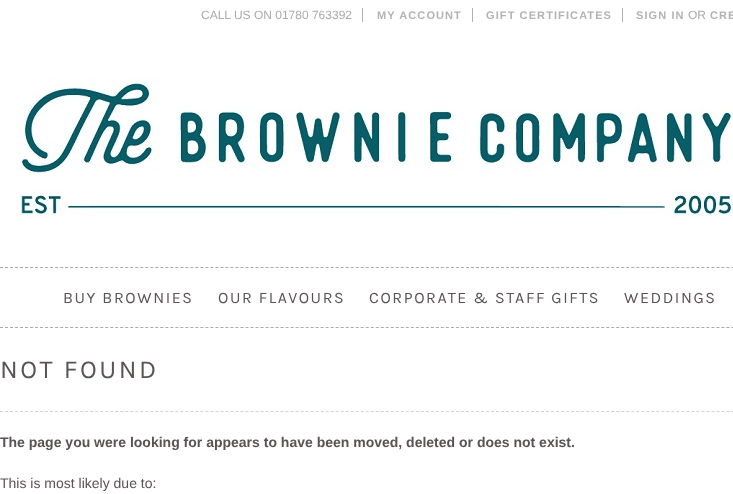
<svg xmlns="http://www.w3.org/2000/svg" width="733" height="494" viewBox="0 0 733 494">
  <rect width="100%" height="100%" fill="rgb(255,255,255)"/>
  <rect x="362" y="8" width="1" height="14" fill="rgb(179,179,179)"/>
  <text x="201" y="19" font-family="Liberation Sans" font-size="12" fill="rgb(172,169,169)">CALL US ON 01780 763392</text>
  <rect x="472" y="8" width="1" height="14" fill="rgb(179,179,179)"/>
  <text x="377" y="19" font-family="Liberation Sans" font-size="11" font-weight="bold" letter-spacing="1.1" fill="rgb(179,179,179)">MY ACCOUNT</text>
  <rect x="622" y="8" width="1" height="14" fill="rgb(179,179,179)"/>
  <g font-family="Liberation Sans" font-size="11" font-weight="bold" letter-spacing="1.1" fill="rgb(179,179,179)">
    <text x="486" y="19">GIFT CERTIFICATES</text>
    <text x="636" y="19">SIGN IN</text>
  </g>
  <text x="688" y="19" font-family="Liberation Sans" font-size="12" fill="rgb(172,169,169)">OR</text>
  <text x="710" y="19" font-family="Liberation Sans" font-size="11" font-weight="bold" letter-spacing="1.1" fill="rgb(179,179,179)">CRE</text>
  <image x="16" y="76" width="717" height="144" href="pic1.png"/>
  <path d="M0 267.5H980" fill="none" stroke="rgb(172,169,169)" stroke-dasharray="3 2.01"/>
  <path d="M0 327.5H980" fill="none" stroke="rgb(172,169,169)" stroke-dasharray="3 2.01"/>
  <g font-family="Karla" font-size="16" letter-spacing="1.6" fill="rgb(90,83,83)">
    <text x="63" y="303">BUY BROWNIES</text>
    <text x="218" y="303">OUR FLAVOURS</text>
    <text x="369" y="303">CORPORATE &amp; STAFF GIFTS</text>
    <text x="624" y="303">WEDDINGS</text>
  </g>
  <path d="M0 411.5H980" fill="none" stroke="rgb(212,211,211)" stroke-dasharray="3 2.01"/>
  <text x="0" y="378" font-family="Karla" font-size="26" letter-spacing="2.5" fill="rgb(90,83,83)">NOT FOUND</text>
  <text x="0" y="447" font-family="Liberation Sans" font-size="14" font-weight="bold" fill="rgb(90,83,83)">The page you were looking for appears to have been moved, deleted or does not exist.</text>
  <text x="0" y="488" font-family="Liberation Sans" font-size="14" fill="rgb(90,83,83)">This is most likely due to:</text>
</svg>
